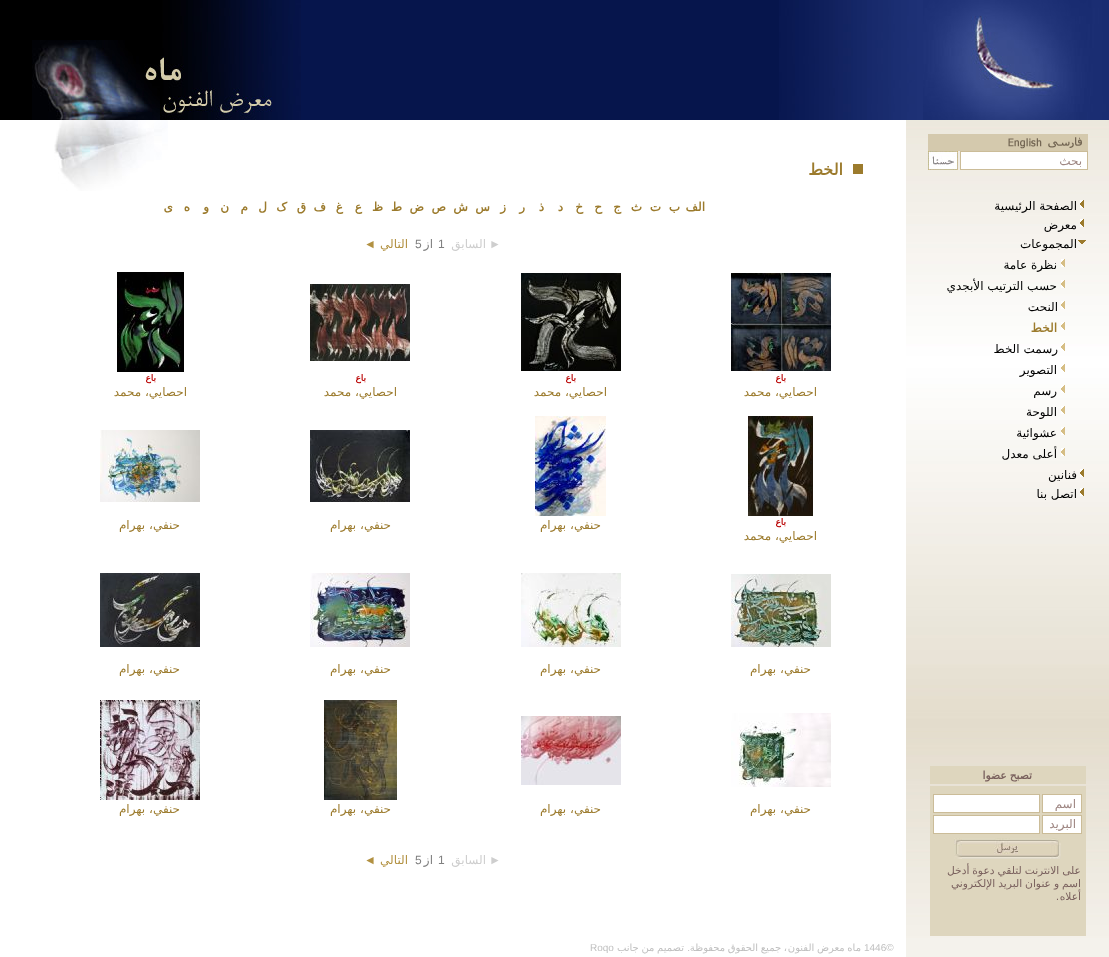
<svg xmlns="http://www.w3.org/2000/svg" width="1109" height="957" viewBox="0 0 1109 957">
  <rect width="100%" height="100%" fill="rgb(255,255,255)"/>
  <rect x="301" y="0" width="478" height="120" fill="rgb(6,21,76)"/>
  <image x="779" y="0" width="330" height="120" href="pic1.png"/>
  <image x="0" y="0" width="301" height="120" href="pic2.png"/>
  <image x="54" y="120" width="114" height="71" href="pic3.png"/>
  <image x="906" y="120" width="203" height="818" href="pic4.png"/>
  <rect x="928" y="134" width="160" height="17" fill="rgb(212,201,173)"/>
  <image x="1048" y="137" width="34" height="11" href="pic5.png"/>
  <image x="1008" y="138" width="34" height="11" href="pic6.png"/>
  <rect x="960.5" y="151.5" width="127" height="18" fill="rgb(255,255,255)" stroke="rgb(203,188,152)"/>
  <text x="1082" y="165" font-family="DejaVu Sans" font-size="12" direction="rtl" fill="rgb(158,134,130)">بحث</text>
  <image x="928" y="151" width="30" height="19" href="pic7.png"/>
  <image x="1080" y="200" width="4" height="8" href="pic8.png"/>
  <text x="1077" y="210" font-family="DejaVu Sans" font-size="12" direction="rtl" fill="rgb(0,0,0)">الصفحة الرئيسية</text>
  <image x="1080" y="219" width="4" height="8" href="pic8.png"/>
  <text x="1077" y="229" font-family="DejaVu Sans" font-size="12" direction="rtl" fill="rgb(0,0,0)">معرض</text>
  <image x="1078" y="240" width="8" height="4" href="pic9.png"/>
  <text x="1077" y="248" font-family="DejaVu Sans" font-size="12" direction="rtl" fill="rgb(0,0,0)">المجموعات</text>
  <image x="1061" y="259" width="4" height="8" href="pic10.png"/>
  <text x="1057" y="269" font-family="DejaVu Sans" font-size="12" direction="rtl" fill="rgb(0,0,0)">نظرة عامة</text>
  <image x="1061" y="280" width="4" height="8" href="pic10.png"/>
  <text x="1057" y="290" font-family="DejaVu Sans" font-size="12" direction="rtl" fill="rgb(0,0,0)">حسب الترتيب الأبجدي</text>
  <image x="1061" y="301" width="4" height="8" href="pic10.png"/>
  <text x="1058" y="311" font-family="DejaVu Sans" font-size="12" direction="rtl" fill="rgb(0,0,0)">النحت</text>
  <image x="1061" y="322" width="4" height="8" href="pic10.png"/>
  <text x="1057" y="332" font-family="DejaVu Sans" font-size="12" font-weight="bold" direction="rtl" fill="rgb(156,123,45)">الخط</text>
  <image x="1061" y="343" width="4" height="8" href="pic10.png"/>
  <text x="1058" y="353" font-family="DejaVu Sans" font-size="12" direction="rtl" fill="rgb(0,0,0)">رسمت الخط</text>
  <image x="1061" y="364" width="4" height="8" href="pic10.png"/>
  <text x="1057" y="374" font-family="DejaVu Sans" font-size="12" direction="rtl" fill="rgb(0,0,0)">التصوير</text>
  <image x="1061" y="385" width="4" height="8" href="pic10.png"/>
  <text x="1057" y="395" font-family="DejaVu Sans" font-size="12" direction="rtl" fill="rgb(0,0,0)">رسم</text>
  <image x="1061" y="406" width="4" height="8" href="pic10.png"/>
  <text x="1057" y="416" font-family="DejaVu Sans" font-size="12" direction="rtl" fill="rgb(0,0,0)">اللوحة</text>
  <image x="1061" y="427" width="4" height="8" href="pic10.png"/>
  <text x="1057" y="437" font-family="DejaVu Sans" font-size="12" direction="rtl" fill="rgb(0,0,0)">عشوائية</text>
  <image x="1061" y="448" width="4" height="8" href="pic10.png"/>
  <text x="1057" y="458" font-family="DejaVu Sans" font-size="12" direction="rtl" fill="rgb(0,0,0)">أعلى معدل</text>
  <image x="1080" y="469" width="4" height="8" href="pic8.png"/>
  <text x="1077" y="479" font-family="DejaVu Sans" font-size="12" direction="rtl" fill="rgb(0,0,0)">فنانين</text>
  <image x="1080" y="488" width="4" height="8" href="pic8.png"/>
  <text x="1077" y="498" font-family="DejaVu Sans" font-size="12" direction="rtl" fill="rgb(0,0,0)">اتصل بنا</text>
  <rect x="930" y="766" width="156" height="18" fill="rgb(222,214,190)"/>
  <text x="1032" y="779" word-spacing="-0.5" font-family="DejaVu Sans" font-size="10.7" font-weight="bold" direction="rtl" fill="rgb(122,97,94)">تصبح عضوا</text>
  <rect x="930" y="786" width="156" height="150" fill="rgb(222,214,190)"/>
  <rect x="1042.5" y="794.5" width="39" height="18" fill="rgb(255,255,255)" stroke="rgb(203,188,152)"/>
  <text x="1076" y="808" font-family="DejaVu Sans" font-size="12" direction="rtl" fill="rgb(158,134,130)">اسم</text>
  <rect x="933.5" y="794.5" width="106" height="18" fill="rgb(255,255,255)" stroke="rgb(203,188,152)"/>
  <rect x="1042.5" y="815.5" width="39" height="18" fill="rgb(255,255,255)" stroke="rgb(203,188,152)"/>
  <text x="1076" y="828" font-family="DejaVu Sans" font-size="12" direction="rtl" fill="rgb(158,134,130)">البريد</text>
  <rect x="933.5" y="815.5" width="106" height="18" fill="rgb(255,255,255)" stroke="rgb(203,188,152)"/>
  <image x="954" y="838" width="107" height="21" href="pic11.png"/>
  <g font-family="DejaVu Sans" font-size="10.7" direction="rtl" fill="rgb(122,97,94)">
    <text>
      <tspan x="1081" y="874" word-spacing="-0.5">على الانترنت لتلقي دعوة أدخل</tspan>
      <tspan x="1081" y="887" word-spacing="-0.5">اسم و عنوان البريد الإلكتروني</tspan>
      <tspan x="1081" y="900">أعلاه</tspan>
    </text>
  </g>
  <text x="1059" y="900" font-family="Liberation Sans" font-size="10.7" direction="rtl" fill="rgb(122,97,94)">.</text>
  <rect x="853" y="164" width="10" height="10" fill="rgb(156,123,45)"/>
  <text x="843" y="175" font-family="DejaVu Sans" font-size="16" font-weight="bold" direction="rtl" fill="rgb(156,123,45)">الخط</text>
  <g font-family="DejaVu Sans" font-size="12" font-weight="bold" direction="rtl" fill="rgb(156,123,45)">
    <text x="705" y="211">الف</text>
    <text x="680" y="211">ب</text>
    <text x="661" y="211">ت</text>
    <text x="642" y="211">ث</text>
    <text x="621" y="211">ج</text>
    <text x="602" y="211">ح</text>
    <text x="583" y="211">خ</text>
    <text x="563" y="211">د</text>
    <text x="544" y="211">ذ</text>
    <text x="525" y="211">ر</text>
    <text x="506" y="211">ز</text>
    <text x="490" y="211">س</text>
    <text x="468" y="211">ش</text>
    <text x="446" y="211">ص</text>
    <text x="424" y="211">ض</text>
    <text x="402" y="211">ط</text>
    <text x="383" y="211">ظ</text>
    <text x="362" y="211">ع</text>
    <text x="343" y="211">غ</text>
    <text x="326" y="211">ف</text>
    <text x="306" y="211">ق</text>
    <text x="287" y="211">ک</text>
    <text x="267" y="211">ل</text>
    <text x="248" y="211">م</text>
    <text x="229" y="211">ن</text>
    <text x="209" y="211">و</text>
    <text x="190" y="211">ه</text>
    <text x="173" y="211">ی</text>
  </g>
  <text x="501" y="248" font-family="Liberation Sans" font-size="12" direction="rtl" fill="rgb(206,206,206)">►</text>
  <text x="486" y="248" font-family="DejaVu Sans" font-size="12" direction="rtl" fill="rgb(206,206,206)">السابق</text>
  <text x="438" y="248" font-family="Liberation Sans" font-size="12" fill="rgb(128,128,128)">1</text>
  <text x="433" y="248" font-family="DejaVu Sans" font-size="12" direction="rtl" fill="rgb(128,128,128)">از</text>
  <text x="415" y="248" font-family="Liberation Sans" font-size="12" fill="rgb(128,128,128)">5</text>
  <text x="408" y="248" font-family="DejaVu Sans" font-size="12" direction="rtl" fill="rgb(178,145,65)">التالي</text>
  <text x="376" y="248" font-family="Liberation Sans" font-size="12" direction="rtl" fill="rgb(178,145,65)">◄</text>
  <image x="731" y="273" width="100" height="98" href="pic12.png"/>
  <text x="786" y="381" font-family="DejaVu Sans" font-size="9" font-weight="bold" direction="rtl" fill="rgb(185,0,0)">باع</text>
  <text x="817" y="396" font-family="DejaVu Sans" font-size="12" direction="rtl" fill="rgb(156,123,45)">احصايي، محمد</text>
  <image x="521" y="273" width="100" height="98" href="pic13.png"/>
  <text x="576" y="381" font-family="DejaVu Sans" font-size="9" font-weight="bold" direction="rtl" fill="rgb(185,0,0)">باع</text>
  <text x="607" y="396" font-family="DejaVu Sans" font-size="12" direction="rtl" fill="rgb(156,123,45)">احصايي، محمد</text>
  <image x="310" y="284" width="100" height="77" href="pic14.png"/>
  <text x="366" y="381" font-family="DejaVu Sans" font-size="9" font-weight="bold" direction="rtl" fill="rgb(185,0,0)">باع</text>
  <text x="397" y="396" font-family="DejaVu Sans" font-size="12" direction="rtl" fill="rgb(156,123,45)">احصايي، محمد</text>
  <image x="117" y="272" width="67" height="100" href="pic15.png"/>
  <text x="156" y="381" font-family="DejaVu Sans" font-size="9" font-weight="bold" direction="rtl" fill="rgb(185,0,0)">باع</text>
  <text x="187" y="396" font-family="DejaVu Sans" font-size="12" direction="rtl" fill="rgb(156,123,45)">احصايي، محمد</text>
  <image x="748" y="416" width="65" height="100" href="pic16.png"/>
  <text x="786" y="525" font-family="DejaVu Sans" font-size="9" font-weight="bold" direction="rtl" fill="rgb(185,0,0)">باع</text>
  <text x="817" y="540" font-family="DejaVu Sans" font-size="12" direction="rtl" fill="rgb(156,123,45)">احصايي، محمد</text>
  <image x="535" y="416" width="71" height="100" href="pic17.png"/>
  <text x="601" y="529" font-family="DejaVu Sans" font-size="12" direction="rtl" fill="rgb(156,123,45)">حنفي، بهرام</text>
  <image x="310" y="430" width="100" height="72" href="pic18.png"/>
  <text x="391" y="529" font-family="DejaVu Sans" font-size="12" direction="rtl" fill="rgb(156,123,45)">حنفي، بهرام</text>
  <image x="100" y="430" width="100" height="72" href="pic19.png"/>
  <text x="180" y="529" font-family="DejaVu Sans" font-size="12" direction="rtl" fill="rgb(156,123,45)">حنفي، بهرام</text>
  <image x="731" y="574" width="100" height="73" href="pic20.png"/>
  <text x="811" y="673" font-family="DejaVu Sans" font-size="12" direction="rtl" fill="rgb(156,123,45)">حنفي، بهرام</text>
  <image x="521" y="573" width="100" height="74" href="pic21.png"/>
  <text x="601" y="673" font-family="DejaVu Sans" font-size="12" direction="rtl" fill="rgb(156,123,45)">حنفي، بهرام</text>
  <image x="310" y="573" width="100" height="74" href="pic22.png"/>
  <text x="391" y="673" font-family="DejaVu Sans" font-size="12" direction="rtl" fill="rgb(156,123,45)">حنفي، بهرام</text>
  <image x="100" y="573" width="100" height="74" href="pic23.png"/>
  <text x="180" y="673" font-family="DejaVu Sans" font-size="12" direction="rtl" fill="rgb(156,123,45)">حنفي، بهرام</text>
  <image x="731" y="713" width="100" height="74" href="pic24.png"/>
  <text x="811" y="813" font-family="DejaVu Sans" font-size="12" direction="rtl" fill="rgb(156,123,45)">حنفي، بهرام</text>
  <image x="521" y="716" width="100" height="69" href="pic25.png"/>
  <text x="601" y="813" font-family="DejaVu Sans" font-size="12" direction="rtl" fill="rgb(156,123,45)">حنفي، بهرام</text>
  <image x="324" y="700" width="73" height="100" href="pic26.png"/>
  <text x="391" y="813" font-family="DejaVu Sans" font-size="12" direction="rtl" fill="rgb(156,123,45)">حنفي، بهرام</text>
  <image x="100" y="700" width="100" height="100" href="pic27.png"/>
  <text x="180" y="813" font-family="DejaVu Sans" font-size="12" direction="rtl" fill="rgb(156,123,45)">حنفي، بهرام</text>
  <text x="501" y="864" font-family="Liberation Sans" font-size="12" direction="rtl" fill="rgb(206,206,206)">►</text>
  <text x="486" y="864" font-family="DejaVu Sans" font-size="12" direction="rtl" fill="rgb(206,206,206)">السابق</text>
  <text x="438" y="864" font-family="Liberation Sans" font-size="12" fill="rgb(128,128,128)">1</text>
  <text x="433" y="864" font-family="DejaVu Sans" font-size="12" direction="rtl" fill="rgb(128,128,128)">از</text>
  <text x="415" y="864" font-family="Liberation Sans" font-size="12" fill="rgb(128,128,128)">5</text>
  <text x="408" y="864" font-family="DejaVu Sans" font-size="12" direction="rtl" fill="rgb(178,145,65)">التالي</text>
  <text x="376" y="864" font-family="Liberation Sans" font-size="12" direction="rtl" fill="rgb(178,145,65)">◄</text>
  <rect x="906" y="938" width="203" height="19" fill="rgb(244,242,236)"/>
  <text x="864" y="951" font-family="Liberation Sans" font-size="10" fill="rgb(192,192,192)">1446©</text>
  <g font-family="DejaVu Sans" font-size="10" direction="rtl" fill="rgb(192,192,192)">
    <text x="861" y="951" word-spacing="-0.5">ماه معرض الفنون</text>
    <text x="787" y="951" word-spacing="-0.5">، جميع الحقوق محفوظة</text>
  </g>
  <text x="690" y="951" font-family="Liberation Sans" font-size="10" direction="rtl" fill="rgb(192,192,192)">.</text>
  <text x="684" y="951" word-spacing="-0.5" font-family="DejaVu Sans" font-size="10" direction="rtl" fill="rgb(192,192,192)">تصميم من جانب</text>
  <text x="590" y="951" font-family="Liberation Sans" font-size="10" fill="rgb(192,192,192)">Roqo</text>
</svg>
